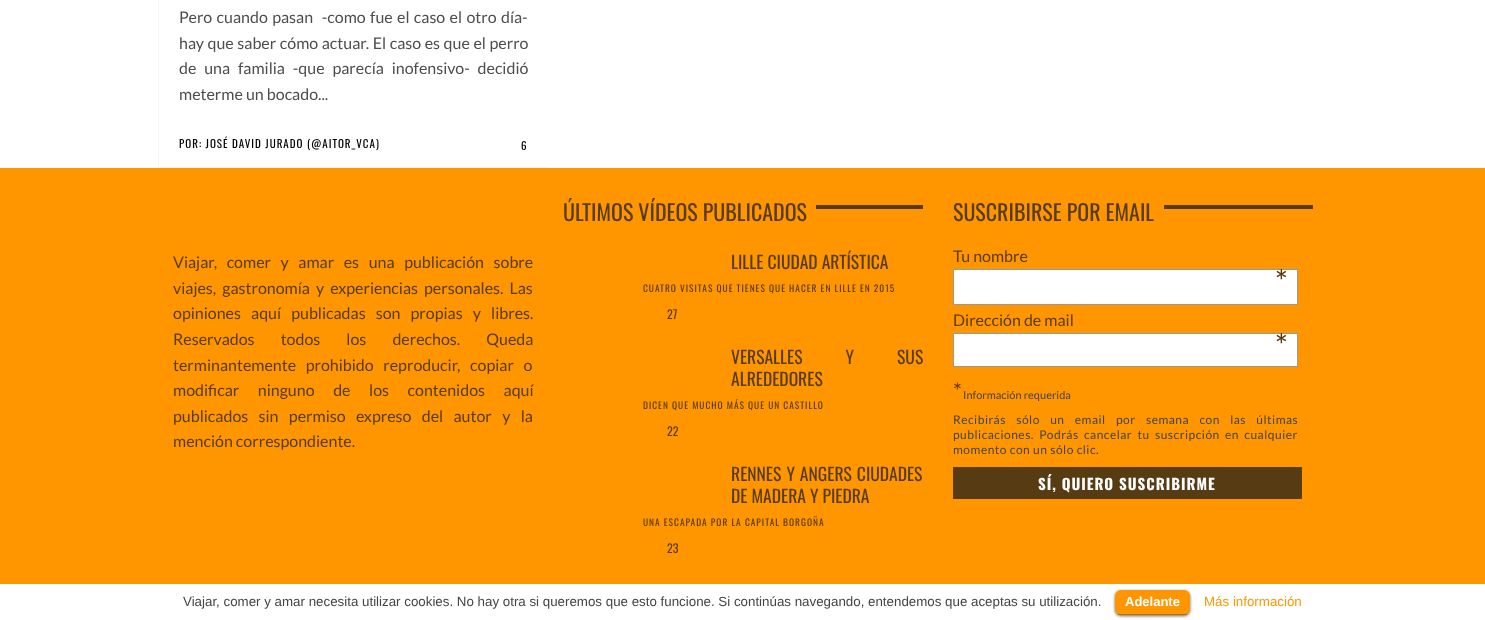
<svg xmlns="http://www.w3.org/2000/svg" width="1485" height="620" viewBox="0 0 1485 620">
  <defs>
    <clipPath id="clip1"><rect x="563" y="198" width="360" height="28"/></clipPath>
  </defs>
  <rect width="100%" height="100%" fill="rgb(255,255,255)"/>
  <rect x="158" y="167" width="390" height="1" fill="rgb(245,245,245)"/>
  <rect x="158" y="0" width="1" height="168" fill="rgb(245,245,245)"/>
  <g font-family="Lato" font-size="16" fill="rgb(78,78,78)">
    <text xml:space="preserve"><tspan x="179" y="23" word-spacing="1.25">Pero cuando pasan  -como fue el caso el otro día-</tspan><tspan x="179" y="49" word-spacing="0.5">hay que saber cómo actuar. El caso es que el perro</tspan><tspan x="179" y="74" word-spacing="4.75">de una familia -que parecía inofensivo- decidió</tspan><tspan x="179" y="100">meterme un bocado...</tspan></text>
  </g>
  <g font-family="Oswald" font-size="11" letter-spacing="1" fill="rgb(0,0,0)">
    <text x="179" y="148">POR: JOSÉ DAVID JURADO (@AITOR_VCA)</text>
    <text x="521" y="150">6</text>
  </g>
  <rect x="0" y="168" width="1485" height="416" fill="rgb(255,150,0)"/>
  <g font-family="Lato" font-size="16" fill="rgb(87,59,19)">
    <text>
      <tspan x="173" y="268" word-spacing="6.5">Viajar, comer y amar es una publicación sobre</tspan>
      <tspan x="173" y="294" word-spacing="3">viajes, gastronomía y experiencias personales. Las</tspan>
      <tspan x="173" y="319" word-spacing="7">opiniones aquí publicadas son propias y libres.</tspan>
      <tspan x="173" y="345" word-spacing="23">Reservados todos los derechos. Queda</tspan>
      <tspan x="173" y="371" word-spacing="6.5">terminantemente prohibido reproducir, copiar o</tspan>
      <tspan x="173" y="396" word-spacing="15.5">modificar ninguno de los contenidos aquí</tspan>
      <tspan x="173" y="422" word-spacing="7.25">publicados sin permiso expreso del autor y la</tspan>
      <tspan x="173" y="447">mención correspondiente.</tspan>
    </text>
  </g>
  <g clip-path="url(#clip1)">
    <text x="563" y="221" font-family="Oswald" font-size="22" fill="rgb(87,59,19)">ÚLTIMOS VÍDEOS PUBLICADOS</text>
  </g>
  <rect x="816" y="205" width="107" height="4" fill="rgb(87,59,19)"/>
  <text x="731" y="269" font-family="Oswald" font-size="17.6" fill="rgb(87,59,19)">LILLE CIUDAD ARTÍSTICA</text>
  <text x="643" y="292" font-family="Oswald" font-size="9.4" letter-spacing="1" fill="rgb(87,59,19)">CUATRO VISITAS QUE TIENES QUE HACER EN LILLE EN 2015</text>
  <text x="667" y="319" font-family="Oswald" font-size="12" fill="rgb(87,59,19)">27</text>
  <g font-family="Oswald" font-size="17.6" fill="rgb(87,59,19)">
    <text>
      <tspan x="731" y="364" word-spacing="39">VERSALLES Y SUS</tspan>
      <tspan x="731" y="386">ALREDEDORES</tspan>
    </text>
  </g>
  <text x="643" y="409" font-family="Oswald" font-size="9.4" letter-spacing="1" fill="rgb(87,59,19)">DICEN QUE MUCHO MÁS QUE UN CASTILLO</text>
  <text x="667" y="436" font-family="Oswald" font-size="12" fill="rgb(87,59,19)">22</text>
  <g font-family="Oswald" font-size="17.6" fill="rgb(87,59,19)">
    <text>
      <tspan x="731" y="481" word-spacing="1">RENNES Y ANGERS CIUDADES</tspan>
      <tspan x="731" y="503">DE MADERA Y PIEDRA</tspan>
    </text>
  </g>
  <text x="643" y="526" font-family="Oswald" font-size="9.4" letter-spacing="1" fill="rgb(87,59,19)">UNA ESCAPADA POR LA CAPITAL BORGOÑA</text>
  <text x="667" y="553" font-family="Oswald" font-size="12" fill="rgb(87,59,19)">23</text>
  <text x="953" y="221" font-family="Oswald" font-size="22" fill="rgb(87,59,19)">SUSCRIBIRSE POR EMAIL</text>
  <rect x="1164" y="205" width="149" height="4" fill="rgb(87,59,19)"/>
  <text x="953" y="262" font-family="Lato" font-size="16" fill="rgb(87,59,19)">Tu nombre</text>
  <rect x="953.5" y="269.5" width="344" height="35" fill="rgb(255,255,255)" stroke="rgb(153,153,153)"/>
  <text x="1275" y="293" font-family="Lato" font-size="32" fill="rgb(87,59,19)">*</text>
  <text x="953" y="326" font-family="Lato" font-size="16" fill="rgb(87,59,19)">Dirección de mail</text>
  <rect x="953.5" y="333.5" width="344" height="33" fill="rgb(255,255,255)" stroke="rgb(153,153,153)"/>
  <text x="1275" y="357" font-family="Lato" font-size="32" fill="rgb(87,59,19)">*</text>
  <text x="953" y="399" font-family="Lato" font-size="22" fill="rgb(87,59,19)">*</text>
  <text x="963" y="399" font-family="Lato" font-size="11" fill="rgb(69,69,69)">Información requerida</text>
  <g font-family="Lato" font-size="12" letter-spacing="0.5" fill="rgb(69,69,69)">
    <text>
      <tspan x="953" y="424" word-spacing="7.5">Recibirás sólo un email por semana con las últimas</tspan>
      <tspan x="953" y="439" word-spacing="2.5">publicaciones. Podrás cancelar tu suscripción en cualquier</tspan>
      <tspan x="953" y="454">momento con un sólo clic.</tspan>
    </text>
  </g>
  <rect x="953" y="467" width="349" height="32" fill="rgb(87,59,19)"/>
  <text x="1038" y="490" font-family="Oswald" font-size="15" font-weight="bold" letter-spacing="1" fill="rgb(255,255,255)">SÍ, QUIERO SUSCRIBIRME</text>
  <text x="183" y="606" font-family="Liberation Sans" font-size="13.33" fill="rgb(69,69,69)">Viajar, comer y amar necesita utilizar cookies. No hay otra si queremos que esto funcione. Si continúas navegando, entendemos que aceptas su utilización.</text>
  <rect x="1115" y="591" width="75" height="25" rx="6" fill="rgba(0,0,0,0.6)" filter="blur(1.5px)"/>
  <rect x="1115" y="590" width="75" height="25" rx="6" fill="rgb(255,150,0)"/>
  <rect x="1118" y="614" width="69" height="1" fill="rgba(0,0,0,0.25)"/>
  <text x="1125" y="606" font-family="Liberation Sans" font-size="13" font-weight="bold" fill="rgb(255,255,255)">Adelante</text>
  <text x="1204" y="606" font-family="Liberation Sans" font-size="13.33" fill="rgb(255,150,0)">Más información</text>
</svg>
